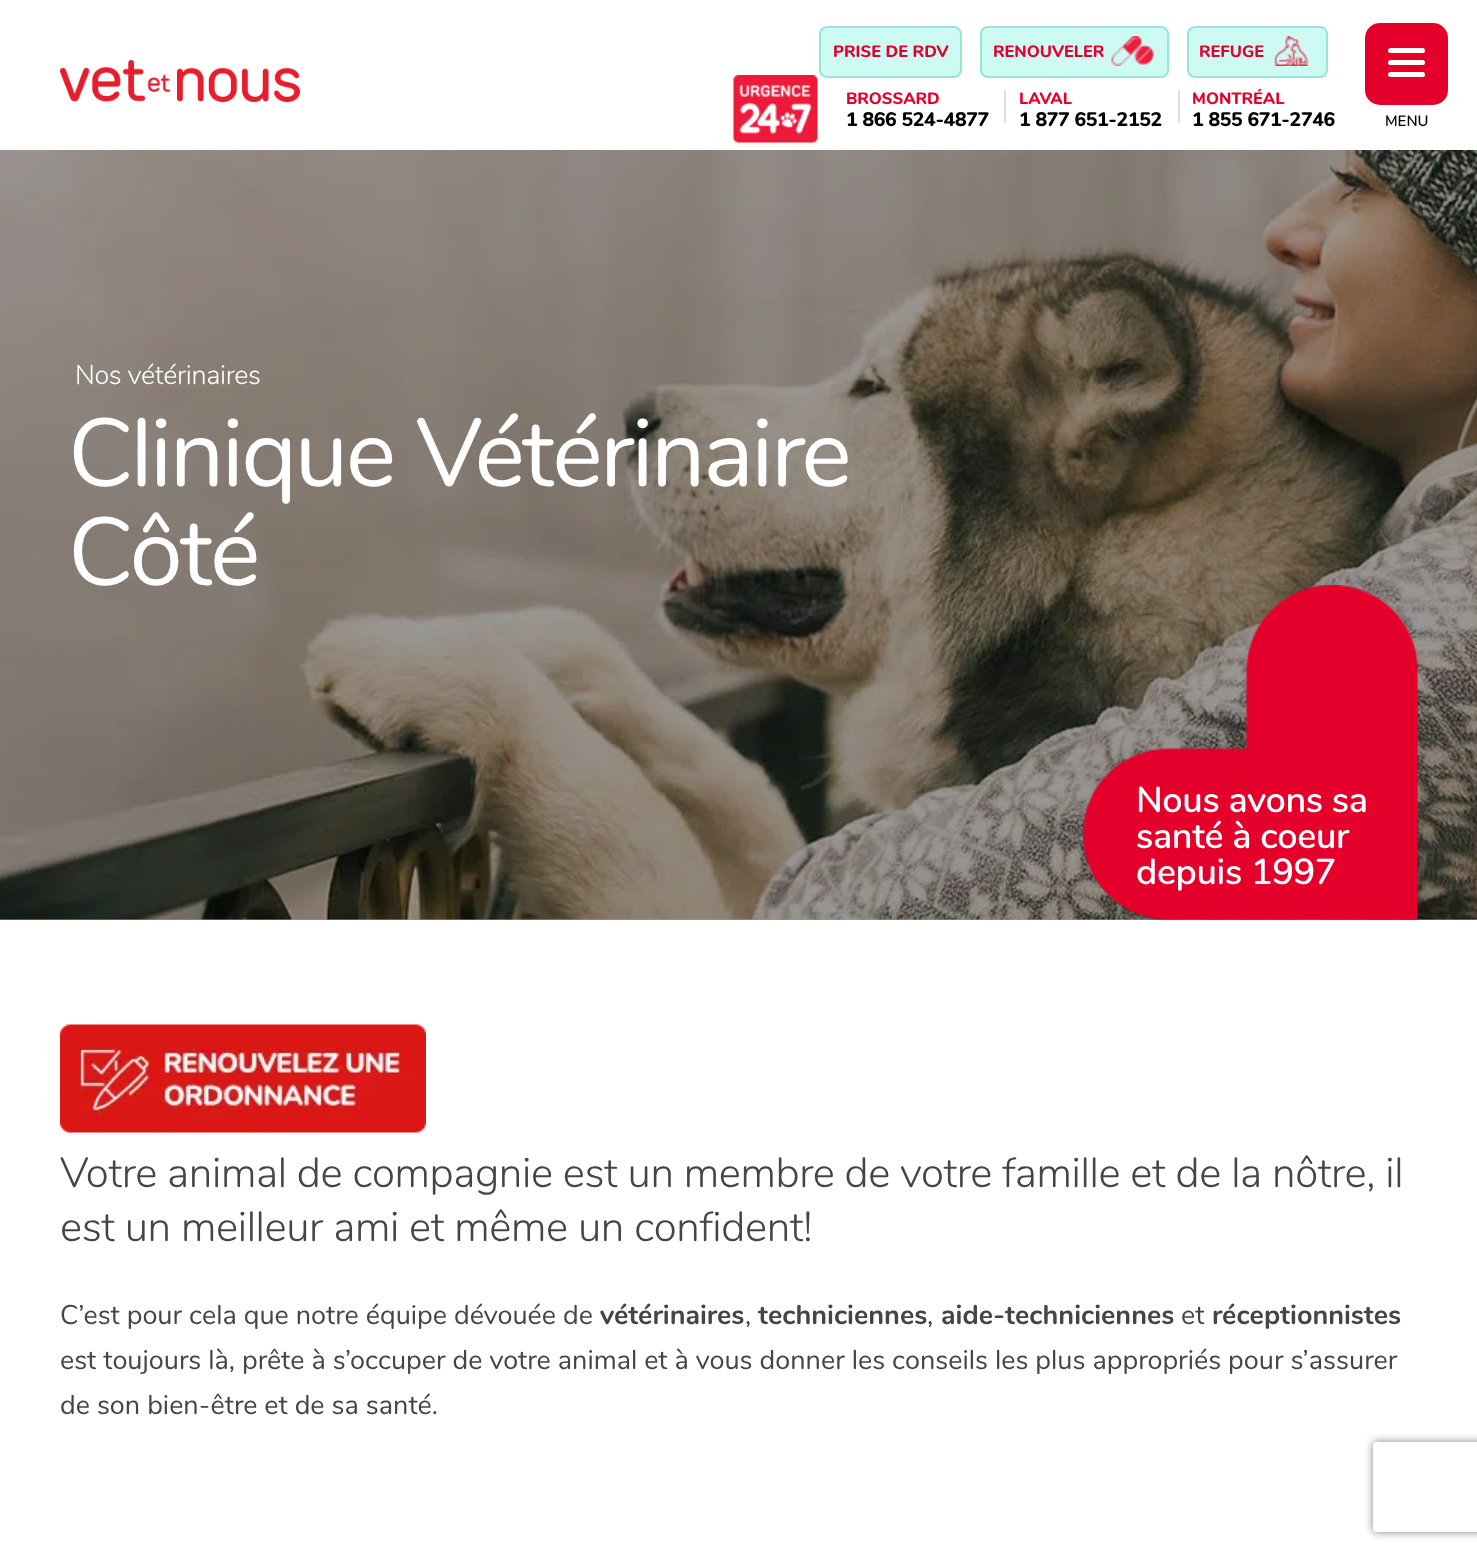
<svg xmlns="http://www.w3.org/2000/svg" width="1477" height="1552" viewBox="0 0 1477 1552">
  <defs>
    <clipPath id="clip1"><path d="M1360 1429H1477V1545H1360ZM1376 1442H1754C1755.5 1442 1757 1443.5 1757 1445V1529C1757 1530.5 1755.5 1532 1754 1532H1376C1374.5 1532 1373 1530.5 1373 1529V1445C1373 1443.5 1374.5 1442 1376 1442Z" clip-rule="evenodd"/></clipPath>
  </defs>
  <rect width="100%" height="100%" fill="rgb(255,255,255)"/>
  <rect x="0" y="919" width="1477" height="1" fill="rgb(153,153,153)"/>
  <rect x="820" y="27" width="141" height="50" rx="7" fill="rgb(205,251,243)" stroke="rgb(152,228,215)" stroke-width="2"/>
  <text x="833" y="57" font-family="Nunito" font-size="16.5" font-weight="800" fill="rgb(228,0,43)">PRISE DE RDV</text>
  <rect x="981" y="27" width="187" height="50" rx="7" fill="rgb(205,251,243)" stroke="rgb(152,228,215)" stroke-width="2"/>
  <text x="993" y="57" font-family="Nunito" font-size="16.5" font-weight="800" fill="rgb(228,0,43)">RENOUVELER</text>
  <image x="1111" y="36" width="43" height="30" href="pic1.png"/>
  <rect x="1188" y="27" width="139" height="50" rx="7" fill="rgb(205,251,243)" stroke="rgb(152,228,215)" stroke-width="2"/>
  <text x="1199" y="57" font-family="Nunito" font-size="16.5" font-weight="800" fill="rgb(228,0,43)">REFUGE</text>
  <image x="1274" y="36" width="35" height="30" href="pic2.png"/>
  <image x="60" y="60" width="240" height="42" href="pic3.png"/>
  <image x="733" y="75" width="85" height="68" href="pic4.png"/>
  <text x="846" y="104" font-family="Nunito" font-size="16.5" font-weight="800" fill="rgb(228,0,43)">BROSSARD</text>
  <text x="846" y="126" font-family="Nunito" font-size="19.5" font-weight="800" letter-spacing="-0.38" fill="rgb(0,0,0)">1 866 524-4877</text>
  <rect x="1004" y="90" width="2" height="33" fill="rgb(225,225,225)"/>
  <text x="1019" y="104" font-family="Nunito" font-size="16.5" font-weight="800" fill="rgb(228,0,43)">LAVAL</text>
  <text x="1019" y="126" font-family="Nunito" font-size="19.5" font-weight="800" letter-spacing="-0.38" fill="rgb(0,0,0)">1 877 651-2152</text>
  <rect x="1178" y="90" width="2" height="33" fill="rgb(225,225,225)"/>
  <text x="1192" y="104" font-family="Nunito" font-size="16.5" font-weight="800" fill="rgb(228,0,43)">MONTRÉAL</text>
  <text x="1192" y="126" font-family="Nunito" font-size="19.5" font-weight="800" letter-spacing="-0.38" fill="rgb(0,0,0)">1 855 671-2746</text>
  <image x="0" y="150" width="1477" height="770" href="pic5.png"/>
  <text x="75" y="384" font-family="Nunito" font-size="27" font-weight="300" letter-spacing="-0.38" fill="rgb(255,255,255)">Nos vétérinaires</text>
  <g font-family="Nunito" font-size="96" letter-spacing="-2.6" fill="rgb(255,255,255)">
    <text>
      <tspan x="68" y="486">Clinique Vétérinaire</tspan>
      <tspan x="68" y="585">Côté</tspan>
    </text>
  </g>
  <image x="1083" y="585" width="335" height="335" href="pic6.png"/>
  <g font-family="Nunito" font-size="36" font-weight="600" letter-spacing="-0.38" fill="rgb(255,255,255)">
    <text>
      <tspan x="1136" y="812">Nous avons sa</tspan>
      <tspan x="1136" y="848">santé à coeur</tspan>
      <tspan x="1136" y="884">depuis 1997</tspan>
    </text>
  </g>
  <image x="60" y="1024" width="366" height="109" href="pic7.png"/>
  <g font-family="Nunito" font-size="42" font-weight="300" letter-spacing="-0.38" fill="rgb(70,69,69)">
    <text>
      <tspan x="60" y="1187">Votre animal de compagnie est un membre de votre famille et de la nôtre, il</tspan>
      <tspan x="60" y="1241">est un meilleur ami et même un confident!</tspan>
    </text>
  </g>
  <text x="60" y="1324" font-family="Nunito" font-size="27" fill="rgb(70,69,69)">C’est pour cela que notre équipe dévouée de</text>
  <text x="600" y="1324" font-family="Nunito" font-size="27" font-weight="bold" fill="rgb(70,69,69)">vétérinaires</text>
  <text x="745" y="1324" font-family="Nunito" font-size="27" fill="rgb(70,69,69)">,</text>
  <text x="758" y="1324" font-family="Nunito" font-size="27" font-weight="bold" fill="rgb(70,69,69)">techniciennes</text>
  <text x="927" y="1324" font-family="Nunito" font-size="27" fill="rgb(70,69,69)">,</text>
  <text x="941" y="1324" font-family="Nunito" font-size="27" font-weight="bold" fill="rgb(70,69,69)">aide-techniciennes</text>
  <text x="1181" y="1324" font-family="Nunito" font-size="27" fill="rgb(70,69,69)">et</text>
  <text x="1212" y="1324" font-family="Nunito" font-size="27" font-weight="bold" fill="rgb(70,69,69)">réceptionnistes</text>
  <g font-family="Nunito" font-size="27" fill="rgb(70,69,69)">
    <text>
      <tspan x="60" y="1369">est toujours là, prête à s’occuper de votre animal et à vous donner les conseils les plus appropriés pour s’assurer</tspan>
      <tspan x="60" y="1414">de son bien-être et de sa santé.</tspan>
    </text>
  </g>
  <rect x="1365" y="23" width="83" height="82" rx="15" fill="rgb(228,0,43)"/>
  <rect x="1388" y="60" width="37" height="5" rx="2.5" fill="rgb(255,255,255)"/>
  <rect x="1388" y="48" width="37" height="5" rx="2.5" fill="rgb(255,255,255)"/>
  <rect x="1388" y="72" width="37" height="5" rx="2.5" fill="rgb(255,255,255)"/>
  <text x="1385" y="126" font-family="Nunito" font-size="15" font-weight="600" fill="rgb(0,0,0)">MENU</text>
  <g clip-path="url(#clip1)">
    <rect x="1373" y="1442" width="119" height="90" rx="3" fill="rgb(128,128,128)" filter="blur(4px)"/>
  </g>
</svg>
